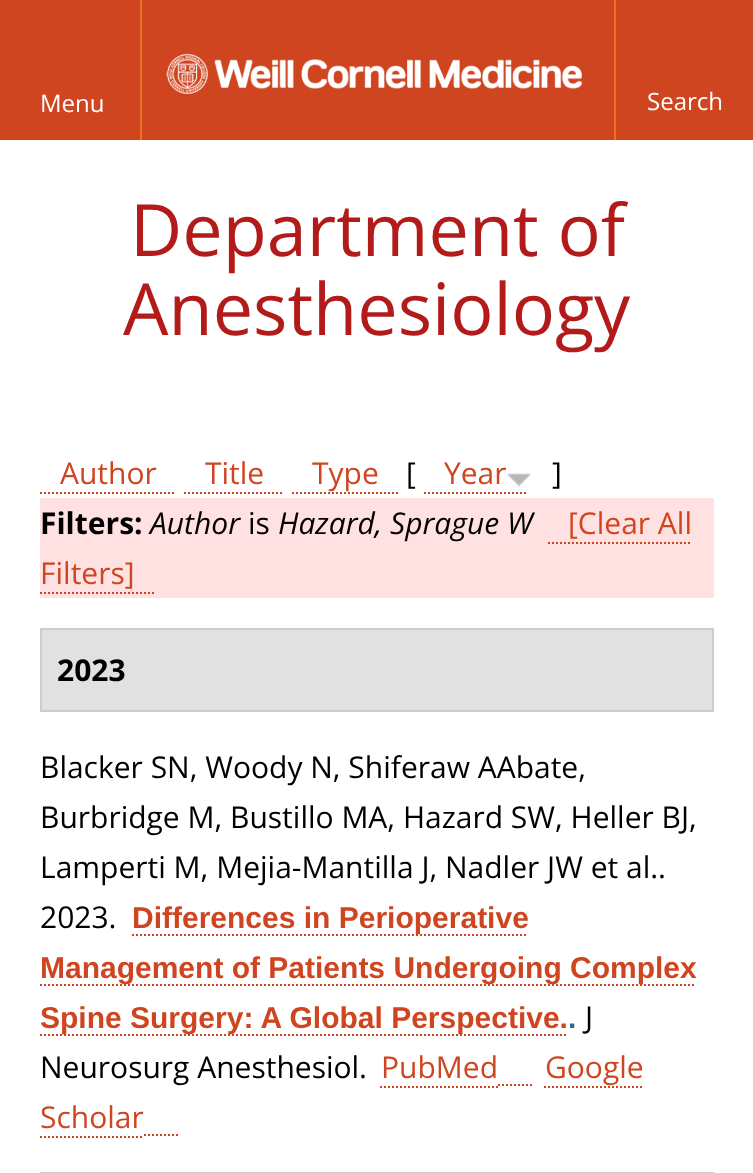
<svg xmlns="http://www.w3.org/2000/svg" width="753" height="1173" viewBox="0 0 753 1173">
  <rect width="100%" height="100%" fill="rgb(255,255,255)"/>
  <rect x="0" y="0" width="753" height="140" fill="rgb(207,69,32)"/>
  <image x="166" y="53" width="416" height="41" href="pic1.png"/>
  <rect x="140" y="0" width="2" height="140" fill="rgb(231,117,29)"/>
  <text x="40" y="112" font-family="Open Sans" font-size="24" fill="rgb(255,255,255)">Menu</text>
  <rect x="614" y="0" width="2" height="140" fill="rgb(231,117,29)"/>
  <text x="647" y="110" font-family="Open Sans" font-size="24" fill="rgb(255,255,255)">Search</text>
  <g font-family="Open Sans" font-size="72" fill="rgb(179,27,27)">
    <text x="130" y="256">Department of</text>
    <text x="123" y="335">Anesthesiology</text>
  </g>
  <text x="60" y="484" font-family="Open Sans" font-size="30" fill="rgb(207,69,32)">Author</text>
  <path d="M40 493H176" fill="none" stroke="rgb(207,69,32)" stroke-width="2" stroke-dasharray="2 2"/>
  <text x="205" y="484" font-family="Open Sans" font-size="30" fill="rgb(207,69,32)">Title</text>
  <path d="M184 493H284" fill="none" stroke="rgb(207,69,32)" stroke-width="2" stroke-dasharray="2 2"/>
  <text x="312" y="484" font-family="Open Sans" font-size="30" fill="rgb(207,69,32)">Type</text>
  <path d="M292 493H398" fill="none" stroke="rgb(207,69,32)" stroke-width="2" stroke-dasharray="2 2"/>
  <text x="406" y="484" font-family="Open Sans" font-size="30" fill="rgb(0,0,0)">[</text>
  <text x="444" y="484" font-family="Open Sans" font-size="30" fill="rgb(207,69,32)">Year</text>
  <path d="M424 493H526" fill="none" stroke="rgb(207,69,32)" stroke-width="2" stroke-dasharray="2 2"/>
  <image x="507" y="473" width="24" height="14" href="pic2.png"/>
  <text x="552" y="484" font-family="Open Sans" font-size="30" fill="rgb(0,0,0)">]</text>
  <rect x="40" y="498" width="674" height="100" fill="rgb(255,225,225)"/>
  <text x="40" y="534" font-family="Open Sans" font-size="30" font-weight="bold" fill="rgb(0,0,0)">Filters:</text>
  <text x="150" y="534" font-family="Open Sans" font-size="30" font-style="italic" fill="rgb(0,0,0)">Author</text>
  <text x="248" y="534" font-family="Open Sans" font-size="30" fill="rgb(0,0,0)">is</text>
  <text x="278" y="534" font-family="Open Sans" font-size="30" font-style="italic" fill="rgb(0,0,0)">Hazard, Sprague W</text>
  <text x="568" y="534" font-family="Open Sans" font-size="30" fill="rgb(207,69,32)">[Clear All</text>
  <path d="M548 543H692" fill="none" stroke="rgb(207,69,32)" stroke-width="2" stroke-dasharray="2 2"/>
  <text x="40" y="584" font-family="Open Sans" font-size="30" fill="rgb(207,69,32)">Filters]</text>
  <path d="M40 593H154" fill="none" stroke="rgb(207,69,32)" stroke-width="2" stroke-dasharray="2 2"/>
  <rect x="41" y="629" width="672" height="82" fill="rgb(225,225,225)" stroke="rgb(204,204,204)" stroke-width="2"/>
  <text x="57" y="681" font-family="Open Sans" font-size="30" font-weight="bold" fill="rgb(0,0,0)">2023</text>
  <g font-family="Open Sans" font-size="30" fill="rgb(0,0,0)">
    <text>
      <tspan x="40" y="778">Blacker SN, Woody N, Shiferaw AAbate,</tspan>
      <tspan x="40" y="828">Burbridge M, Bustillo MA, Hazard SW, Heller BJ,</tspan>
      <tspan x="40" y="878">Lamperti M, Mejia-Mantilla J, Nadler JW et al..</tspan>
      <tspan x="40" y="928">2023.</tspan>
    </text>
  </g>
  <path d="M132 935H528" fill="none" stroke="rgb(207,69,32)" stroke-width="2" stroke-dasharray="2 2"/>
  <text x="132" y="928" font-family="Liberation Sans" font-size="30" font-weight="bold" fill="rgb(207,69,32)">Differences in Perioperative</text>
  <path d="M40 985H696" fill="none" stroke="rgb(207,69,32)" stroke-width="2" stroke-dasharray="2 2"/>
  <text x="40" y="978" font-family="Liberation Sans" font-size="30" font-weight="bold" fill="rgb(207,69,32)">Management of Patients Undergoing Complex</text>
  <path d="M40 1035H568" fill="none" stroke="rgb(207,69,32)" stroke-width="2" stroke-dasharray="2 2"/>
  <text x="40" y="1028" font-family="Liberation Sans" font-size="30" font-weight="bold" fill="rgb(207,69,32)">Spine Surgery: A Global Perspective.</text>
  <text x="568" y="1028" font-family="Liberation Sans" font-size="30" font-weight="bold" fill="rgb(51,101,153)">.</text>
  <g font-family="Open Sans" font-size="30" fill="rgb(0,0,0)">
    <text x="585" y="1028">J</text>
    <text x="40" y="1078">Neurosurg Anesthesiol.</text>
  </g>
  <text x="381" y="1078" font-family="Open Sans" font-size="30" fill="rgb(207,69,32)">PubMed</text>
  <path d="M380 1087H498" fill="none" stroke="rgb(207,69,32)" stroke-width="2" stroke-dasharray="2 2"/>
  <path d="M498 1085H532" fill="none" stroke="rgb(207,69,32)" stroke-width="2" stroke-dasharray="2 2"/>
  <text x="545" y="1078" font-family="Open Sans" font-size="30" fill="rgb(207,69,32)">Google</text>
  <path d="M544 1087H644" fill="none" stroke="rgb(207,69,32)" stroke-width="2" stroke-dasharray="2 2"/>
  <text x="40" y="1128" font-family="Open Sans" font-size="30" fill="rgb(207,69,32)">Scholar</text>
  <path d="M40 1137H144" fill="none" stroke="rgb(207,69,32)" stroke-width="2" stroke-dasharray="2 2"/>
  <path d="M144 1135H178" fill="none" stroke="rgb(207,69,32)" stroke-width="2" stroke-dasharray="2 2"/>
  <rect x="41" y="1173" width="672" height="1" fill="none" stroke="rgb(204,204,204)" stroke-width="2"/>
</svg>
